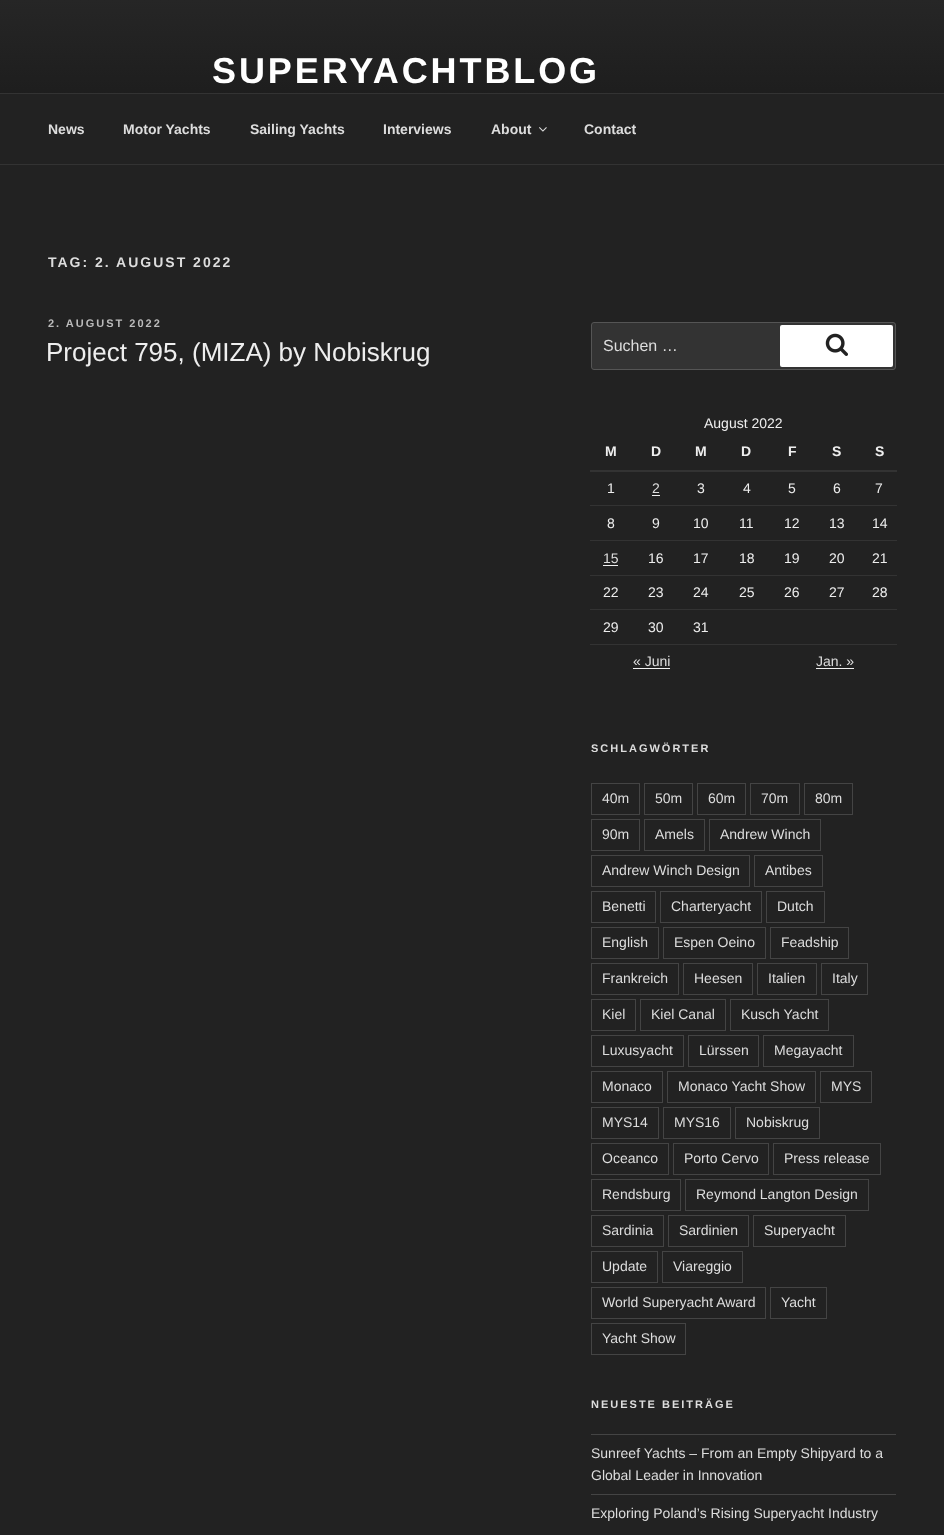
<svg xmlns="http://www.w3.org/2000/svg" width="944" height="1535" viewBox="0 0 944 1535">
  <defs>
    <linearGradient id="g1" gradientUnits="userSpaceOnUse" x1="472" y1="0" x2="472" y2="165"><stop offset="0" stop-color="rgb(38,38,38)"/><stop offset="0.75" stop-color="rgb(27,27,27)"/><stop offset="1" stop-color="rgb(27,27,27)"/></linearGradient>
  </defs>
  <rect width="100%" height="100%" fill="rgb(34,34,34)"/>
  <rect x="0" y="0" width="944" height="93" fill="url(#g1)"/>
  <text x="212" y="83" font-family="Liberation Sans" font-size="36" font-weight="bold" letter-spacing="2.9" fill="rgb(255,255,255)">SUPERYACHTBLOG</text>
  <rect x="0" y="93" width="944" height="1" fill="rgb(51,51,51)"/>
  <rect x="0" y="164" width="944" height="1" fill="rgb(51,51,51)"/>
  <g font-family="Liberation Sans" font-size="14" font-weight="bold" fill="rgb(221,221,221)">
    <text x="48" y="134">News</text>
    <text x="123" y="134">Motor Yachts</text>
    <text x="250" y="134">Sailing Yachts</text>
    <text x="383" y="134">Interviews</text>
    <text x="491" y="134">About</text>
  </g>
  <image x="539" y="127" width="8" height="5" href="pic1.png"/>
  <text x="584" y="134" font-family="Liberation Sans" font-size="14" font-weight="bold" fill="rgb(221,221,221)">Contact</text>
  <text x="48" y="267" font-family="Liberation Sans" font-size="14" font-weight="bold" letter-spacing="2" fill="rgb(221,221,221)">TAG: 2. AUGUST 2022</text>
  <text x="48" y="327" font-family="Liberation Sans" font-size="11" font-weight="bold" letter-spacing="2" fill="rgb(187,187,187)">2. AUGUST 2022</text>
  <text x="46" y="361" font-family="Liberation Sans" font-size="26" fill="rgb(238,238,238)">Project 795, (MIZA) by Nobiskrug</text>
  <rect x="591.5" y="322.5" width="304" height="47" rx="2.5" fill="rgb(51,51,51)" stroke="rgb(85,85,85)"/>
  <text x="603" y="351" font-family="Liberation Sans" font-size="16" fill="rgb(221,221,221)">Suchen …</text>
  <rect x="780" y="325" width="113" height="42" rx="2" fill="rgb(255,255,255)"/>
  <image x="825" y="333" width="23" height="23" href="pic2.png"/>
  <text x="704" y="428" font-family="Liberation Sans" font-size="14" fill="rgb(238,238,238)">August 2022</text>
  <g font-family="Liberation Sans" font-size="14" font-weight="bold" fill="rgb(238,238,238)">
    <text x="605" y="456">M</text>
    <text x="651" y="456">D</text>
    <text x="695" y="456">M</text>
    <text x="741" y="456">D</text>
    <text x="788" y="456">F</text>
    <text x="832" y="456">S</text>
  </g>
  <rect x="590" y="470" width="307" height="2" fill="rgb(51,51,51)"/>
  <text x="875" y="456" font-family="Liberation Sans" font-size="14" font-weight="bold" fill="rgb(238,238,238)">S</text>
  <rect x="590" y="505" width="307" height="1" fill="rgb(51,51,51)"/>
  <text x="607" y="493" font-family="Liberation Sans" font-size="14" fill="rgb(238,238,238)">1</text>
  <text x="652" y="493" font-family="Liberation Sans" font-size="14" fill="rgb(221,221,221)">2</text>
  <rect x="652" y="495" width="8" height="1" fill="rgb(240,240,240)"/>
  <g font-family="Liberation Sans" font-size="14" fill="rgb(238,238,238)">
    <text x="697" y="493">3</text>
    <text x="743" y="493">4</text>
    <text x="788" y="493">5</text>
    <text x="833" y="493">6</text>
    <text x="875" y="493">7</text>
  </g>
  <rect x="590" y="540" width="307" height="1" fill="rgb(51,51,51)"/>
  <g font-family="Liberation Sans" font-size="14" fill="rgb(238,238,238)">
    <text x="607" y="528">8</text>
    <text x="652" y="528">9</text>
    <text x="693" y="528">10</text>
    <text x="739" y="528">11</text>
    <text x="784" y="528">12</text>
    <text x="829" y="528">13</text>
    <text x="872" y="528">14</text>
  </g>
  <rect x="590" y="575" width="307" height="1" fill="rgb(51,51,51)"/>
  <text x="603" y="563" font-family="Liberation Sans" font-size="14" fill="rgb(221,221,221)">15</text>
  <rect x="603" y="565" width="15" height="1" fill="rgb(240,240,240)"/>
  <g font-family="Liberation Sans" font-size="14" fill="rgb(238,238,238)">
    <text x="648" y="563">16</text>
    <text x="693" y="563">17</text>
    <text x="739" y="563">18</text>
    <text x="784" y="563">19</text>
    <text x="829" y="563">20</text>
    <text x="872" y="563">21</text>
  </g>
  <rect x="590" y="609" width="307" height="1" fill="rgb(51,51,51)"/>
  <g font-family="Liberation Sans" font-size="14" fill="rgb(238,238,238)">
    <text x="603" y="597">22</text>
    <text x="648" y="597">23</text>
    <text x="693" y="597">24</text>
    <text x="739" y="597">25</text>
    <text x="784" y="597">26</text>
    <text x="829" y="597">27</text>
    <text x="872" y="597">28</text>
  </g>
  <rect x="590" y="644" width="307" height="1" fill="rgb(51,51,51)"/>
  <g font-family="Liberation Sans" font-size="14" fill="rgb(238,238,238)">
    <text x="603" y="632">29</text>
    <text x="648" y="632">30</text>
    <text x="693" y="632">31</text>
  </g>
  <text x="633" y="666" font-family="Liberation Sans" font-size="14" fill="rgb(221,221,221)">« Juni</text>
  <rect x="633" y="668" width="37" height="1" fill="rgb(240,240,240)"/>
  <text x="816" y="666" font-family="Liberation Sans" font-size="14" fill="rgb(221,221,221)">Jan. »</text>
  <rect x="816" y="668" width="38" height="1" fill="rgb(240,240,240)"/>
  <text x="591" y="752" font-family="Liberation Sans" font-size="11" font-weight="bold" letter-spacing="2" fill="rgb(221,221,221)">SCHLAGWÖRTER</text>
  <rect x="591.5" y="783.5" width="48" height="31" fill="none" stroke="rgb(68,68,68)"/>
  <text x="602" y="803" font-family="Liberation Sans" font-size="14" fill="rgb(221,221,221)">40m</text>
  <rect x="644.5" y="783.5" width="48" height="31" fill="none" stroke="rgb(68,68,68)"/>
  <text x="655" y="803" font-family="Liberation Sans" font-size="14" fill="rgb(221,221,221)">50m</text>
  <rect x="697.5" y="783.5" width="48" height="31" fill="none" stroke="rgb(68,68,68)"/>
  <text x="708" y="803" font-family="Liberation Sans" font-size="14" fill="rgb(221,221,221)">60m</text>
  <rect x="750.5" y="783.5" width="49" height="31" fill="none" stroke="rgb(68,68,68)"/>
  <text x="761" y="803" font-family="Liberation Sans" font-size="14" fill="rgb(221,221,221)">70m</text>
  <rect x="804.5" y="783.5" width="48" height="31" fill="none" stroke="rgb(68,68,68)"/>
  <text x="815" y="803" font-family="Liberation Sans" font-size="14" fill="rgb(221,221,221)">80m</text>
  <rect x="591.5" y="819.5" width="48" height="31" fill="none" stroke="rgb(68,68,68)"/>
  <text x="602" y="839" font-family="Liberation Sans" font-size="14" fill="rgb(221,221,221)">90m</text>
  <rect x="644.5" y="819.5" width="60" height="31" fill="none" stroke="rgb(68,68,68)"/>
  <text x="655" y="839" font-family="Liberation Sans" font-size="14" fill="rgb(221,221,221)">Amels</text>
  <rect x="709.5" y="819.5" width="111" height="31" fill="none" stroke="rgb(68,68,68)"/>
  <text x="720" y="839" font-family="Liberation Sans" font-size="14" fill="rgb(221,221,221)">Andrew Winch</text>
  <rect x="591.5" y="855.5" width="158" height="31" fill="none" stroke="rgb(68,68,68)"/>
  <text x="602" y="875" font-family="Liberation Sans" font-size="14" fill="rgb(221,221,221)">Andrew Winch Design</text>
  <rect x="754.5" y="855.5" width="68" height="31" fill="none" stroke="rgb(68,68,68)"/>
  <text x="765" y="875" font-family="Liberation Sans" font-size="14" fill="rgb(221,221,221)">Antibes</text>
  <rect x="591.5" y="891.5" width="64" height="31" fill="none" stroke="rgb(68,68,68)"/>
  <text x="602" y="911" font-family="Liberation Sans" font-size="14" fill="rgb(221,221,221)">Benetti</text>
  <rect x="660.5" y="891.5" width="101" height="31" fill="none" stroke="rgb(68,68,68)"/>
  <text x="671" y="911" font-family="Liberation Sans" font-size="14" fill="rgb(221,221,221)">Charteryacht</text>
  <rect x="766.5" y="891.5" width="58" height="31" fill="none" stroke="rgb(68,68,68)"/>
  <text x="777" y="911" font-family="Liberation Sans" font-size="14" fill="rgb(221,221,221)">Dutch</text>
  <rect x="591.5" y="927.5" width="67" height="31" fill="none" stroke="rgb(68,68,68)"/>
  <text x="602" y="947" font-family="Liberation Sans" font-size="14" fill="rgb(221,221,221)">English</text>
  <rect x="663.5" y="927.5" width="102" height="31" fill="none" stroke="rgb(68,68,68)"/>
  <text x="674" y="947" font-family="Liberation Sans" font-size="14" fill="rgb(221,221,221)">Espen Oeino</text>
  <rect x="770.5" y="927.5" width="78" height="31" fill="none" stroke="rgb(68,68,68)"/>
  <text x="781" y="947" font-family="Liberation Sans" font-size="14" fill="rgb(221,221,221)">Feadship</text>
  <rect x="591.5" y="963.5" width="87" height="31" fill="none" stroke="rgb(68,68,68)"/>
  <text x="602" y="983" font-family="Liberation Sans" font-size="14" fill="rgb(221,221,221)">Frankreich</text>
  <rect x="683.5" y="963.5" width="69" height="31" fill="none" stroke="rgb(68,68,68)"/>
  <text x="694" y="983" font-family="Liberation Sans" font-size="14" fill="rgb(221,221,221)">Heesen</text>
  <rect x="757.5" y="963.5" width="59" height="31" fill="none" stroke="rgb(68,68,68)"/>
  <text x="768" y="983" font-family="Liberation Sans" font-size="14" fill="rgb(221,221,221)">Italien</text>
  <rect x="821.5" y="963.5" width="46" height="31" fill="none" stroke="rgb(68,68,68)"/>
  <text x="832" y="983" font-family="Liberation Sans" font-size="14" fill="rgb(221,221,221)">Italy</text>
  <rect x="591.5" y="999.5" width="44" height="31" fill="none" stroke="rgb(68,68,68)"/>
  <text x="602" y="1019" font-family="Liberation Sans" font-size="14" fill="rgb(221,221,221)">Kiel</text>
  <rect x="640.5" y="999.5" width="85" height="31" fill="none" stroke="rgb(68,68,68)"/>
  <text x="651" y="1019" font-family="Liberation Sans" font-size="14" fill="rgb(221,221,221)">Kiel Canal</text>
  <rect x="730.5" y="999.5" width="98" height="31" fill="none" stroke="rgb(68,68,68)"/>
  <text x="741" y="1019" font-family="Liberation Sans" font-size="14" fill="rgb(221,221,221)">Kusch Yacht</text>
  <rect x="591.5" y="1035.5" width="92" height="31" fill="none" stroke="rgb(68,68,68)"/>
  <text x="602" y="1055" font-family="Liberation Sans" font-size="14" fill="rgb(221,221,221)">Luxusyacht</text>
  <rect x="688.5" y="1035.5" width="70" height="31" fill="none" stroke="rgb(68,68,68)"/>
  <text x="699" y="1055" font-family="Liberation Sans" font-size="14" fill="rgb(221,221,221)">Lürssen</text>
  <rect x="763.5" y="1035.5" width="90" height="31" fill="none" stroke="rgb(68,68,68)"/>
  <text x="774" y="1055" font-family="Liberation Sans" font-size="14" fill="rgb(221,221,221)">Megayacht</text>
  <rect x="591.5" y="1071.5" width="71" height="31" fill="none" stroke="rgb(68,68,68)"/>
  <text x="602" y="1091" font-family="Liberation Sans" font-size="14" fill="rgb(221,221,221)">Monaco</text>
  <rect x="667.5" y="1071.5" width="148" height="31" fill="none" stroke="rgb(68,68,68)"/>
  <text x="678" y="1091" font-family="Liberation Sans" font-size="14" fill="rgb(221,221,221)">Monaco Yacht Show</text>
  <rect x="820.5" y="1071.5" width="51" height="31" fill="none" stroke="rgb(68,68,68)"/>
  <text x="831" y="1091" font-family="Liberation Sans" font-size="14" fill="rgb(221,221,221)">MYS</text>
  <rect x="591.5" y="1107.5" width="67" height="31" fill="none" stroke="rgb(68,68,68)"/>
  <text x="602" y="1127" font-family="Liberation Sans" font-size="14" fill="rgb(221,221,221)">MYS14</text>
  <rect x="663.5" y="1107.5" width="67" height="31" fill="none" stroke="rgb(68,68,68)"/>
  <text x="674" y="1127" font-family="Liberation Sans" font-size="14" fill="rgb(221,221,221)">MYS16</text>
  <rect x="735.5" y="1107.5" width="84" height="31" fill="none" stroke="rgb(68,68,68)"/>
  <text x="746" y="1127" font-family="Liberation Sans" font-size="14" fill="rgb(221,221,221)">Nobiskrug</text>
  <rect x="591.5" y="1143.5" width="77" height="31" fill="none" stroke="rgb(68,68,68)"/>
  <text x="602" y="1163" font-family="Liberation Sans" font-size="14" fill="rgb(221,221,221)">Oceanco</text>
  <rect x="673.5" y="1143.5" width="95" height="31" fill="none" stroke="rgb(68,68,68)"/>
  <text x="684" y="1163" font-family="Liberation Sans" font-size="14" fill="rgb(221,221,221)">Porto Cervo</text>
  <rect x="773.5" y="1143.5" width="107" height="31" fill="none" stroke="rgb(68,68,68)"/>
  <text x="784" y="1163" font-family="Liberation Sans" font-size="14" fill="rgb(221,221,221)">Press release</text>
  <rect x="591.5" y="1179.5" width="89" height="31" fill="none" stroke="rgb(68,68,68)"/>
  <text x="602" y="1199" font-family="Liberation Sans" font-size="14" fill="rgb(221,221,221)">Rendsburg</text>
  <rect x="685.5" y="1179.5" width="183" height="31" fill="none" stroke="rgb(68,68,68)"/>
  <text x="696" y="1199" font-family="Liberation Sans" font-size="14" fill="rgb(221,221,221)">Reymond Langton Design</text>
  <rect x="591.5" y="1215.5" width="72" height="31" fill="none" stroke="rgb(68,68,68)"/>
  <text x="602" y="1235" font-family="Liberation Sans" font-size="14" fill="rgb(221,221,221)">Sardinia</text>
  <rect x="668.5" y="1215.5" width="80" height="31" fill="none" stroke="rgb(68,68,68)"/>
  <text x="679" y="1235" font-family="Liberation Sans" font-size="14" fill="rgb(221,221,221)">Sardinien</text>
  <rect x="753.5" y="1215.5" width="92" height="31" fill="none" stroke="rgb(68,68,68)"/>
  <text x="764" y="1235" font-family="Liberation Sans" font-size="14" fill="rgb(221,221,221)">Superyacht</text>
  <rect x="591.5" y="1251.5" width="66" height="31" fill="none" stroke="rgb(68,68,68)"/>
  <text x="602" y="1271" font-family="Liberation Sans" font-size="14" fill="rgb(221,221,221)">Update</text>
  <rect x="662.5" y="1251.5" width="80" height="31" fill="none" stroke="rgb(68,68,68)"/>
  <text x="673" y="1271" font-family="Liberation Sans" font-size="14" fill="rgb(221,221,221)">Viareggio</text>
  <rect x="591.5" y="1287.5" width="174" height="31" fill="none" stroke="rgb(68,68,68)"/>
  <text x="602" y="1307" font-family="Liberation Sans" font-size="14" fill="rgb(221,221,221)">World Superyacht Award</text>
  <rect x="770.5" y="1287.5" width="56" height="31" fill="none" stroke="rgb(68,68,68)"/>
  <text x="781" y="1307" font-family="Liberation Sans" font-size="14" fill="rgb(221,221,221)">Yacht</text>
  <rect x="591.5" y="1323.5" width="94" height="31" fill="none" stroke="rgb(68,68,68)"/>
  <text x="602" y="1343" font-family="Liberation Sans" font-size="14" fill="rgb(221,221,221)">Yacht Show</text>
  <text x="591" y="1408" font-family="Liberation Sans" font-size="11" font-weight="bold" letter-spacing="2" fill="rgb(221,221,221)">NEUESTE BEITRÄGE</text>
  <rect x="591" y="1434" width="305" height="1" fill="rgb(68,68,68)"/>
  <rect x="591" y="1494" width="305" height="1" fill="rgb(68,68,68)"/>
  <g font-family="Liberation Sans" font-size="14" fill="rgb(221,221,221)">
    <text>
      <tspan x="591" y="1458">Sunreef Yachts – From an Empty Shipyard to a</tspan>
      <tspan x="591" y="1480">Global Leader in Innovation</tspan>
    </text>
    <text x="591" y="1518">Exploring Poland’s Rising Superyacht Industry</text>
  </g>
</svg>
